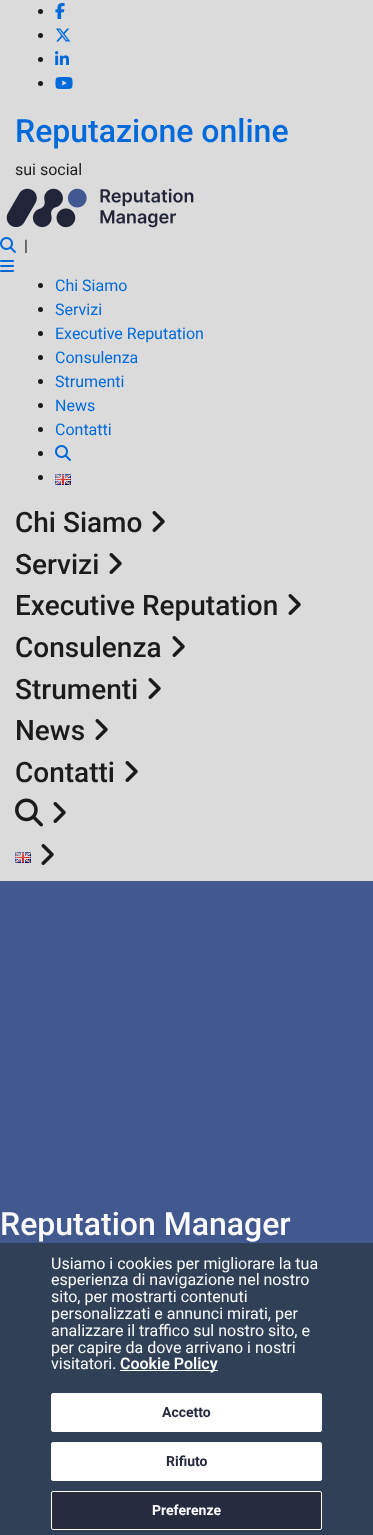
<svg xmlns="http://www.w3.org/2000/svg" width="373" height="1535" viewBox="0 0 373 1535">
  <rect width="100%" height="100%" fill="rgb(219,219,219)"/>
  <circle cx="40.5" cy="11.5" r="2.5" fill="rgb(27,27,27)"/>
  <image x="55" y="3" width="10" height="16" href="pic1.png"/>
  <circle cx="40.5" cy="35.5" r="2.5" fill="rgb(27,27,27)"/>
  <image x="56" y="28" width="15" height="14" href="pic2.png"/>
  <circle cx="40.5" cy="59.5" r="2.5" fill="rgb(27,27,27)"/>
  <image x="55" y="51" width="14" height="14" href="pic3.png"/>
  <circle cx="40.5" cy="83.5" r="2.5" fill="rgb(27,27,27)"/>
  <image x="55" y="77" width="18" height="12" href="pic4.png"/>
  <text x="15" y="142" font-family="Roboto" font-size="32" font-weight="500" fill="rgb(0,106,219)">Reputazione online</text>
  <text x="15" y="175" font-family="Roboto" font-size="16" fill="rgb(27,27,27)">sui social</text>
  <image x="6" y="188" width="188" height="40" href="pic5.png"/>
  <image x="0" y="237" width="16" height="16" href="pic6.png"/>
  <text x="24" y="251" font-family="Roboto" font-size="16" fill="rgb(27,27,27)">|</text>
  <image x="0" y="260" width="14" height="12" href="pic7.png"/>
  <circle cx="40.5" cy="285.5" r="2.5" fill="rgb(27,27,27)"/>
  <text x="55" y="291" font-family="Roboto" font-size="16" fill="rgb(0,106,219)">Chi Siamo</text>
  <circle cx="40.5" cy="309.5" r="2.5" fill="rgb(27,27,27)"/>
  <text x="55" y="315" font-family="Roboto" font-size="16" fill="rgb(0,106,219)">Servizi</text>
  <circle cx="40.5" cy="333.5" r="2.5" fill="rgb(27,27,27)"/>
  <text x="55" y="339" font-family="Roboto" font-size="16" fill="rgb(0,106,219)">Executive Reputation</text>
  <circle cx="40.5" cy="357.5" r="2.5" fill="rgb(27,27,27)"/>
  <text x="55" y="363" font-family="Roboto" font-size="16" fill="rgb(0,106,219)">Consulenza</text>
  <circle cx="40.5" cy="381.5" r="2.5" fill="rgb(27,27,27)"/>
  <text x="55" y="387" font-family="Roboto" font-size="16" fill="rgb(0,106,219)">Strumenti</text>
  <circle cx="40.5" cy="405.5" r="2.5" fill="rgb(27,27,27)"/>
  <text x="55" y="411" font-family="Roboto" font-size="16" fill="rgb(0,106,219)">News</text>
  <circle cx="40.5" cy="429.5" r="2.5" fill="rgb(27,27,27)"/>
  <text x="55" y="435" font-family="Roboto" font-size="16" fill="rgb(0,106,219)">Contatti</text>
  <circle cx="40.5" cy="453.5" r="2.5" fill="rgb(27,27,27)"/>
  <image x="55" y="445" width="16" height="16" href="pic6.png"/>
  <circle cx="40.5" cy="477.5" r="2.5" fill="rgb(27,27,27)"/>
  <image x="55" y="474" width="16" height="11" href="pic8.png"/>
  <text x="15" y="532" font-family="Roboto" font-size="28" font-weight="500" fill="rgb(27,27,27)">Chi Siamo</text>
  <image x="152" y="511" width="13" height="21" href="pic9.png"/>
  <text x="15" y="574" font-family="Roboto" font-size="28" font-weight="500" fill="rgb(27,27,27)">Servizi</text>
  <image x="109" y="553" width="13" height="21" href="pic9.png"/>
  <text x="15" y="615" font-family="Roboto" font-size="28" font-weight="500" fill="rgb(27,27,27)">Executive Reputation</text>
  <image x="288" y="594" width="13" height="21" href="pic9.png"/>
  <text x="15" y="657" font-family="Roboto" font-size="28" font-weight="500" fill="rgb(27,27,27)">Consulenza</text>
  <image x="172" y="636" width="13" height="21" href="pic9.png"/>
  <text x="15" y="699" font-family="Roboto" font-size="28" font-weight="500" fill="rgb(27,27,27)">Strumenti</text>
  <image x="148" y="678" width="13" height="21" href="pic9.png"/>
  <text x="15" y="740" font-family="Roboto" font-size="28" font-weight="500" fill="rgb(27,27,27)">News</text>
  <image x="95" y="719" width="13" height="21" href="pic9.png"/>
  <text x="15" y="782" font-family="Roboto" font-size="28" font-weight="500" fill="rgb(27,27,27)">Contatti</text>
  <image x="125" y="761" width="13" height="21" href="pic9.png"/>
  <image x="15" y="798" width="28" height="29" href="pic10.png"/>
  <image x="53" y="802" width="13" height="21" href="pic9.png"/>
  <image x="15" y="852" width="16" height="11" href="pic8.png"/>
  <image x="41" y="844" width="13" height="21" href="pic9.png"/>
  <rect x="0" y="881" width="373" height="362" fill="rgb(66,89,144)"/>
  <text x="0" y="1235" font-family="Roboto" font-size="32" font-weight="500" fill="rgb(250,250,250)">Reputation Manager</text>
  <rect x="0" y="1243" width="373" height="292" fill="rgb(47,64,87)"/>
  <g font-family="Roboto" font-size="16" fill="rgb(250,250,250)">
    <text>
      <tspan x="51" y="1269">Usiamo i cookies per migliorare la tua</tspan>
      <tspan x="51" y="1285">esperienza di navigazione nel nostro</tspan>
      <tspan x="51" y="1302">sito, per mostrarti contenuti</tspan>
      <tspan x="51" y="1319">personalizzati e annunci mirati, per</tspan>
      <tspan x="51" y="1336">analizzare il traffico sul nostro sito, e</tspan>
      <tspan x="51" y="1353">per capire da dove arrivano i nostri</tspan>
      <tspan x="51" y="1369">visitatori.</tspan>
    </text>
  </g>
  <rect x="120" y="1370" width="98" height="1" fill="rgb(255,255,255)"/>
  <text x="120" y="1369" font-family="Roboto" font-size="16" font-weight="600" fill="rgb(250,250,250)">Cookie Policy</text>
  <rect x="51.5" y="1393.5" width="270" height="38" rx="1.5" fill="rgb(255,255,255)" stroke="rgb(255,255,255)"/>
  <text x="162" y="1417" font-family="Roboto" font-size="14" font-weight="bold" fill="rgb(38,43,64)">Accetto</text>
  <rect x="51.5" y="1442.5" width="270" height="38" rx="1.5" fill="rgb(255,255,255)" stroke="rgb(255,255,255)"/>
  <text x="166" y="1466" font-family="Roboto" font-size="14" font-weight="bold" fill="rgb(38,43,64)">Rifiuto</text>
  <rect x="51.5" y="1491.5" width="270" height="38" rx="1.5" fill="rgb(38,43,64)" stroke="rgb(255,255,255)"/>
  <text x="152" y="1515" font-family="Roboto" font-size="14" font-weight="bold" fill="rgb(250,250,250)">Preferenze</text>
</svg>
